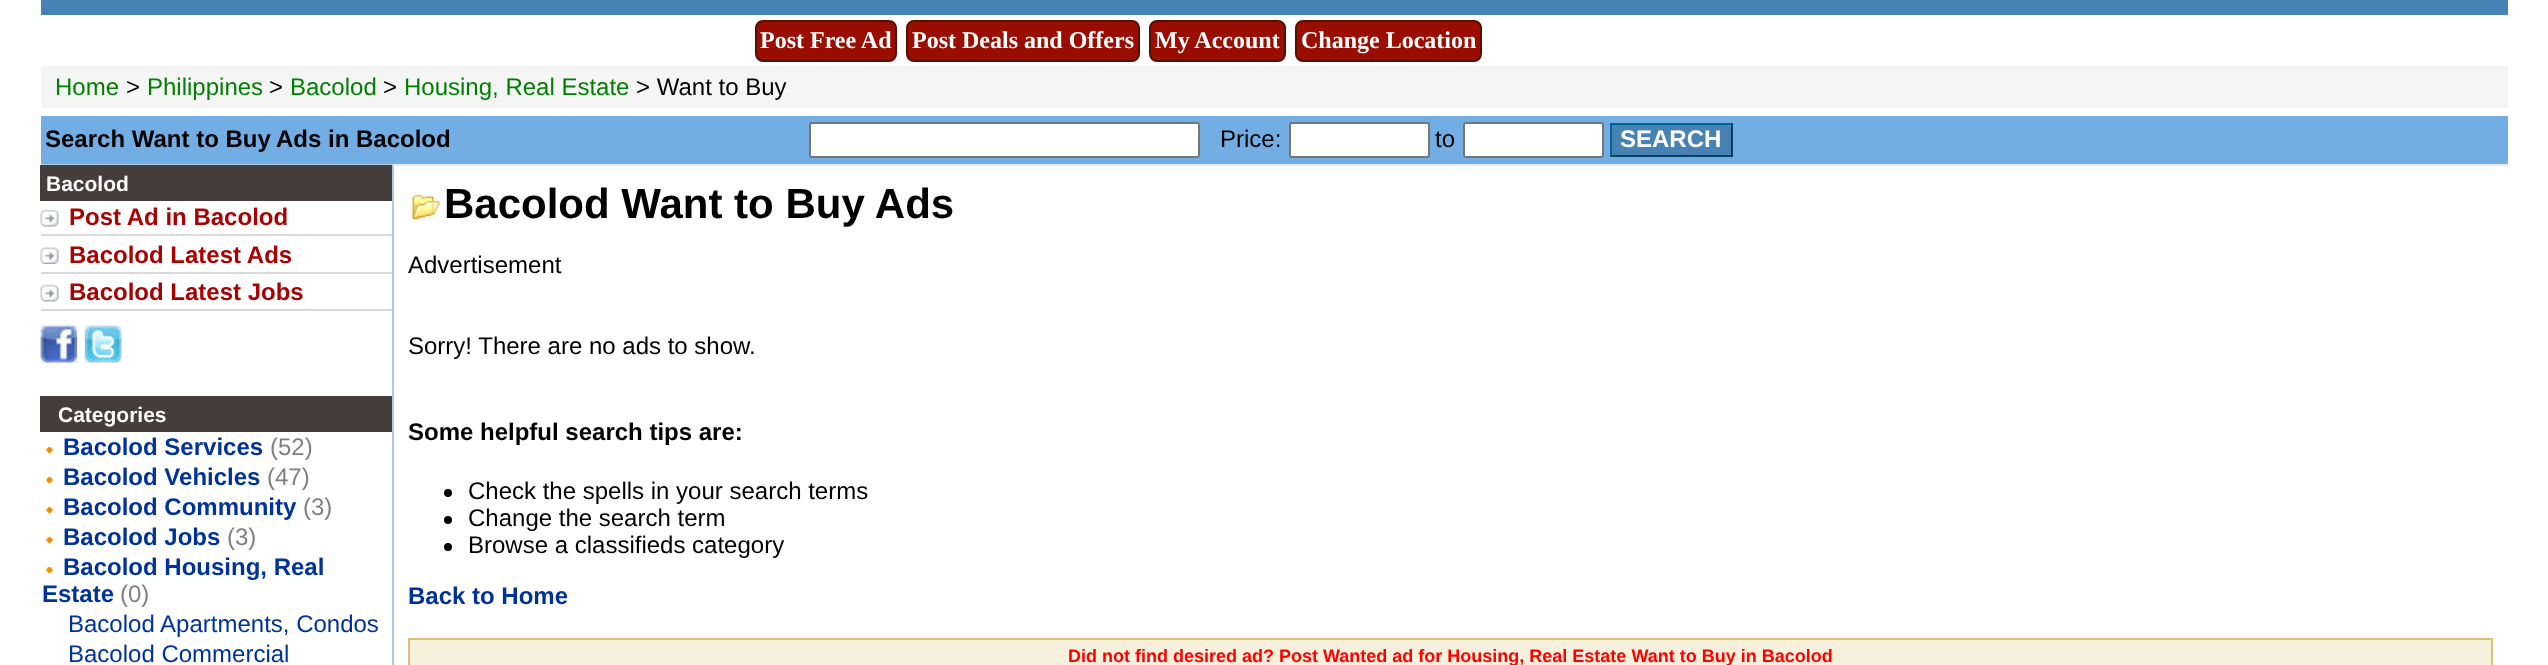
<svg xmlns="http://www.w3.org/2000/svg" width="2548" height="665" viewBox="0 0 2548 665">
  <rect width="100%" height="100%" fill="rgb(255,255,255)"/>
  <rect x="41" y="0" width="2467" height="15" fill="rgb(70,130,180)"/>
  <rect x="756" y="21" width="140" height="40" rx="7" fill="rgb(153,14,0)" stroke="rgb(86,14,0)" stroke-width="2"/>
  <text x="760" y="48" font-family="Liberation Serif" font-size="24" font-weight="bold" fill="rgb(255,255,255)">Post Free Ad</text>
  <rect x="907" y="21" width="232" height="40" rx="7" fill="rgb(153,14,0)" stroke="rgb(86,14,0)" stroke-width="2"/>
  <text x="912" y="48" font-family="Liberation Serif" font-size="24" font-weight="bold" fill="rgb(255,255,255)">Post Deals and Offers</text>
  <rect x="1150" y="21" width="135" height="40" rx="7" fill="rgb(153,14,0)" stroke="rgb(86,14,0)" stroke-width="2"/>
  <text x="1155" y="48" font-family="Liberation Serif" font-size="24" font-weight="bold" fill="rgb(255,255,255)">My Account</text>
  <rect x="1296" y="21" width="185" height="40" rx="7" fill="rgb(153,14,0)" stroke="rgb(86,14,0)" stroke-width="2"/>
  <text x="1301" y="48" font-family="Liberation Serif" font-size="24" font-weight="bold" fill="rgb(255,255,255)">Change Location</text>
  <rect x="41" y="66" width="2467" height="42" fill="rgb(245,245,245)"/>
  <text x="55" y="95" font-family="Liberation Sans" font-size="24" fill="rgb(0,128,0)">Home</text>
  <text x="126" y="95" font-family="Liberation Sans" font-size="24" fill="rgb(0,0,0)">&gt;</text>
  <text x="147" y="95" font-family="Liberation Sans" font-size="24" fill="rgb(0,128,0)">Philippines</text>
  <text x="269" y="95" font-family="Liberation Sans" font-size="24" fill="rgb(0,0,0)">&gt;</text>
  <text x="290" y="95" font-family="Liberation Sans" font-size="24" fill="rgb(0,128,0)">Bacolod</text>
  <text x="383" y="95" font-family="Liberation Sans" font-size="24" fill="rgb(0,0,0)">&gt;</text>
  <text x="404" y="95" font-family="Liberation Sans" font-size="24" fill="rgb(0,128,0)">Housing, Real Estate</text>
  <text x="636" y="95" font-family="Liberation Sans" font-size="24" fill="rgb(0,0,0)">&gt; Want to Buy</text>
  <rect x="41" y="116" width="2467" height="48" fill="rgb(114,174,227)"/>
  <g font-family="Liberation Sans" font-size="24" font-weight="bold" fill="rgb(0,0,0)">
    <text x="45" y="147">Search Want to Buy</text>
    <text x="276" y="147">Ads in Bacolod</text>
  </g>
  <rect x="810" y="123" width="389" height="34" rx="2" fill="rgb(255,255,255)" stroke="rgb(118,118,118)" stroke-width="2"/>
  <text x="1220" y="147" font-family="Liberation Sans" font-size="24" fill="rgb(0,0,0)">Price:</text>
  <rect x="1290" y="123" width="139" height="34" rx="2" fill="rgb(255,255,255)" stroke="rgb(118,118,118)" stroke-width="2"/>
  <text x="1435" y="147" font-family="Liberation Sans" font-size="24" fill="rgb(0,0,0)">to</text>
  <rect x="1464" y="123" width="139" height="34" rx="2" fill="rgb(255,255,255)" stroke="rgb(118,118,118)" stroke-width="2"/>
  <rect x="1612" y="125" width="119" height="30" fill="rgb(70,130,180)"/>
  <rect x="1610" y="123" width="123" height="2" fill="rgb(0,101,149)"/>
  <rect x="1731" y="123" width="2" height="33" fill="rgb(0,67,99)"/>
  <rect x="1610" y="155" width="123" height="2" fill="rgb(0,67,99)"/>
  <rect x="1610" y="123" width="2" height="33" fill="rgb(0,101,149)"/>
  <text x="1620" y="147" font-family="Liberation Sans" font-size="24" font-weight="bold" fill="rgb(255,255,255)">SEARCH</text>
  <rect x="41" y="164" width="352" height="1" fill="rgb(177,199,222)"/>
  <rect x="392" y="164" width="2" height="501" fill="rgb(177,199,222)"/>
  <rect x="40" y="165" width="352" height="36" fill="rgb(69,60,60)"/>
  <text x="46" y="191" font-family="Liberation Sans" font-size="21" font-weight="bold" fill="rgb(255,255,255)">Bacolod</text>
  <image x="40" y="209" width="19" height="18" href="pic1.png"/>
  <rect x="41" y="234" width="351" height="2" fill="rgb(218,218,218)"/>
  <text x="69" y="225" font-family="Liberation Sans" font-size="24" font-weight="bold" fill="rgb(167,3,3)">Post Ad in Bacolod</text>
  <image x="40" y="247" width="19" height="17" href="pic2.png"/>
  <rect x="41" y="272" width="351" height="2" fill="rgb(218,218,218)"/>
  <text x="69" y="263" font-family="Liberation Sans" font-size="24" font-weight="bold" fill="rgb(167,3,3)">Bacolod Latest Ads</text>
  <image x="40" y="284" width="19" height="18" href="pic1.png"/>
  <rect x="41" y="309" width="351" height="2" fill="rgb(218,218,218)"/>
  <text x="69" y="300" font-family="Liberation Sans" font-size="24" font-weight="bold" fill="rgb(167,3,3)">Bacolod Latest Jobs</text>
  <image x="40" y="325" width="38" height="38" href="pic3.png"/>
  <image x="84" y="325" width="38" height="38" href="pic4.png"/>
  <rect x="40" y="396" width="352" height="36" fill="rgb(69,60,60)"/>
  <text x="58" y="422" font-family="Liberation Sans" font-size="21" font-weight="bold" fill="rgb(255,255,255)">Categories</text>
  <image x="46" y="446" width="7" height="8" href="pic5.png"/>
  <text x="63" y="455" font-family="Liberation Sans" font-size="24" font-weight="bold" fill="rgb(0,51,153)">Bacolod Services</text>
  <text x="270" y="455" font-family="Liberation Sans" font-size="24" fill="rgb(128,128,128)">(52)</text>
  <image x="46" y="476" width="7" height="8" href="pic5.png"/>
  <text x="63" y="485" font-family="Liberation Sans" font-size="24" font-weight="bold" fill="rgb(0,51,153)">Bacolod Vehicles</text>
  <text x="267" y="485" font-family="Liberation Sans" font-size="24" fill="rgb(128,128,128)">(47)</text>
  <image x="46" y="506" width="7" height="8" href="pic5.png"/>
  <text x="63" y="515" font-family="Liberation Sans" font-size="24" font-weight="bold" fill="rgb(0,51,153)">Bacolod Community</text>
  <text x="303" y="515" font-family="Liberation Sans" font-size="24" fill="rgb(128,128,128)">(3)</text>
  <image x="46" y="536" width="7" height="8" href="pic5.png"/>
  <text x="63" y="545" font-family="Liberation Sans" font-size="24" font-weight="bold" fill="rgb(0,51,153)">Bacolod Jobs</text>
  <text x="227" y="545" font-family="Liberation Sans" font-size="24" fill="rgb(128,128,128)">(3)</text>
  <image x="46" y="566" width="7" height="8" href="pic5.png"/>
  <g font-family="Liberation Sans" font-size="24" font-weight="bold" fill="rgb(0,51,153)">
    <text x="63" y="575">Bacolod Housing, Real</text>
    <text x="42" y="602">Estate</text>
  </g>
  <text x="120" y="602" font-family="Liberation Sans" font-size="24" fill="rgb(128,128,128)">(0)</text>
  <g font-family="Liberation Sans" font-size="24" fill="rgb(0,51,153)">
    <text>
      <tspan x="68" y="632">Bacolod Apartments, Condos</tspan>
      <tspan x="68" y="662">Bacolod Commercial</tspan>
    </text>
  </g>
  <rect x="393" y="164" width="2115" height="2" fill="rgb(234,234,234)"/>
  <image x="412" y="194" width="28" height="26" href="pic6.png"/>
  <text x="444" y="218" font-family="Liberation Sans" font-size="42" font-weight="bold" fill="rgb(0,0,0)">Bacolod Want to Buy Ads</text>
  <g font-family="Liberation Sans" font-size="24" fill="rgb(0,0,0)">
    <text x="408" y="273">Advertisement</text>
    <text x="408" y="354">Sorry! There are no ads to show.</text>
  </g>
  <text x="408" y="440" font-family="Liberation Sans" font-size="24" font-weight="bold" fill="rgb(0,0,0)">Some helpful search tips are:</text>
  <circle cx="448" cy="493" r="4" fill="rgb(0,0,0)"/>
  <text x="468" y="499" font-family="Liberation Sans" font-size="24" fill="rgb(0,0,0)">Check the spells in your search terms</text>
  <circle cx="448" cy="520" r="4" fill="rgb(0,0,0)"/>
  <text x="468" y="526" font-family="Liberation Sans" font-size="24" fill="rgb(0,0,0)">Change the search term</text>
  <circle cx="448" cy="547" r="4" fill="rgb(0,0,0)"/>
  <text x="468" y="553" font-family="Liberation Sans" font-size="24" fill="rgb(0,0,0)">Browse a classifieds category</text>
  <text x="408" y="604" font-family="Liberation Sans" font-size="24" font-weight="bold" fill="rgb(0,51,153)">Back to Home</text>
  <rect x="409" y="639" width="2083" height="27" fill="rgb(247,240,221)" stroke="rgb(219,192,111)" stroke-width="2"/>
  <text x="1068" y="662" font-family="Liberation Sans" font-size="18" font-weight="bold" fill="rgb(255,0,0)">Did not find desired ad? Post Wanted ad for Housing, Real Estate Want to Buy in Bacolod</text>
</svg>
